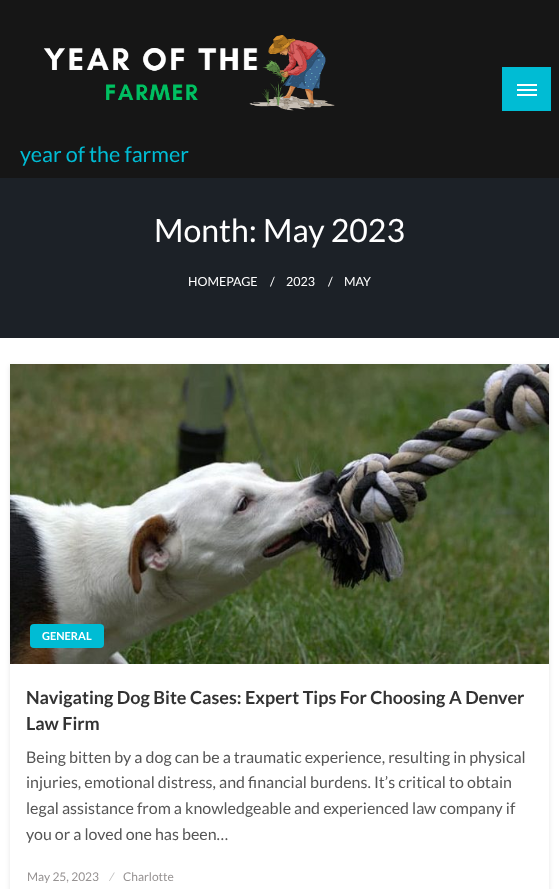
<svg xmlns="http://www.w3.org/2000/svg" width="559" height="889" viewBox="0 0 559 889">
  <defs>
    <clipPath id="clip1"><path d="M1 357H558V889H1ZM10 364H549V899H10Z" clip-rule="evenodd"/></clipPath>
  </defs>
  <rect width="100%" height="100%" fill="rgb(22,22,22)"/>
  <rect x="502" y="67" width="49" height="44" fill="rgb(0,188,212)"/>
  <rect x="517" y="84" width="20" height="2" fill="rgb(255,255,255)"/>
  <rect x="517" y="89" width="20" height="2" fill="rgb(255,255,255)"/>
  <rect x="517" y="94" width="20" height="2" fill="rgb(255,255,255)"/>
  <image x="43" y="35" width="292" height="76" href="pic1.png"/>
  <text x="20" y="162" font-family="Lato" font-size="21.5" fill="rgb(0,188,212)">year of the farmer</text>
  <rect x="0" y="338" width="559" height="551" fill="rgb(255,255,255)"/>
  <rect x="0" y="178" width="559" height="160" fill="rgb(28,33,39)"/>
  <text x="154" y="242" font-family="Lato" font-size="32" fill="rgb(255,255,255)">Month: May 2023</text>
  <g font-family="Lato" font-size="12.5" fill="rgb(255,255,255)">
    <text x="188" y="286">HOMEPAGE</text>
    <text x="270" y="286">/</text>
    <text x="286" y="286">2023</text>
    <text x="328" y="286">/</text>
    <text x="344" y="286">MAY</text>
  </g>
  <g clip-path="url(#clip1)">
    <rect x="10" y="366" width="539" height="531" fill="rgba(0,0,0,0.1)" filter="blur(2.5px)"/>
  </g>
  <image x="10" y="364" width="539" height="300" href="pic2.png"/>
  <rect x="30" y="624" width="74" height="24" rx="4" fill="rgb(0,188,212)"/>
  <text x="42" y="640" font-family="Lato" font-size="11" font-weight="bold" fill="rgb(255,255,255)">GENERAL</text>
  <g font-family="Lato" font-size="18" font-weight="bold" fill="rgb(51,51,51)">
    <text>
      <tspan x="26" y="704">Navigating Dog Bite Cases: Expert Tips For Choosing A Denver</tspan>
      <tspan x="26" y="730">Law Firm</tspan>
    </text>
  </g>
  <g font-family="Lato" font-size="16" fill="rgb(86,86,86)">
    <text>
      <tspan x="26" y="763">Being bitten by a dog can be a traumatic experience, resulting in physical</tspan>
      <tspan x="26" y="788">injuries, emotional distress, and financial burdens. It’s critical to obtain</tspan>
      <tspan x="26" y="814">legal assistance from a knowledgeable and experienced law company if</tspan>
      <tspan x="26" y="840">you or a loved one has been…</tspan>
    </text>
  </g>
  <text x="27" y="881" font-family="Lato" font-size="12" fill="rgb(150,146,146)">May 25, 2023</text>
  <text x="110" y="881" font-family="Lato" font-size="12" fill="rgb(192,192,192)">⁄</text>
  <text x="123" y="881" font-family="Lato" font-size="12" fill="rgb(150,146,146)">Charlotte</text>
</svg>
